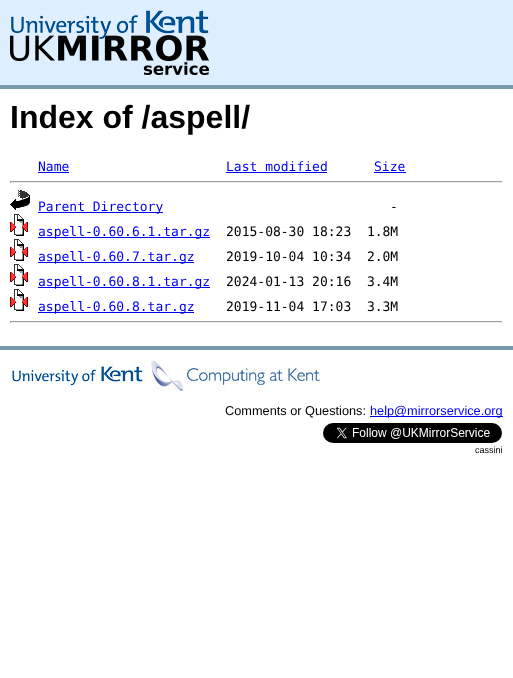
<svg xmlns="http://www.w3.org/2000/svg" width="513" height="678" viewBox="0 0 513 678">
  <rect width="100%" height="100%" fill="rgb(255,255,255)"/>
  <rect x="0" y="0" width="513" height="85" fill="rgb(221,238,255)"/>
  <rect x="0" y="85" width="513" height="4" fill="rgb(119,153,170)"/>
  <image x="10" y="10" width="199" height="65" href="pic1.png"/>
  <text x="10" y="128" font-family="Liberation Sans" font-size="32" font-weight="bold" fill="rgb(0,0,0)">Index of /aspell/</text>
  <text x="38" y="171" font-family="DejaVu Sans Mono" font-size="13" fill="rgb(0,0,238)">Name</text>
  <rect x="38" y="172" width="31" height="1" fill="rgb(0,0,238)"/>
  <text x="226" y="171" font-family="DejaVu Sans Mono" font-size="13" fill="rgb(0,0,238)">Last modified</text>
  <rect x="226" y="172" width="101" height="1" fill="rgb(0,0,238)"/>
  <text x="374" y="171" font-family="DejaVu Sans Mono" font-size="13" fill="rgb(0,0,238)">Size</text>
  <rect x="374" y="172" width="32" height="1" fill="rgb(0,0,238)"/>
  <rect x="10" y="181" width="493" height="1" fill="rgb(159,159,159)"/>
  <rect x="502" y="181" width="1" height="2" fill="rgb(238,238,238)"/>
  <rect x="10" y="182" width="493" height="1" fill="rgb(238,238,238)"/>
  <rect x="10" y="181" width="1" height="2" fill="rgb(159,159,159)"/>
  <image x="10" y="190" width="20" height="20" href="pic2.png"/>
  <rect x="38" y="212" width="125" height="1" fill="rgb(0,0,238)"/>
  <text x="38" y="211" font-family="DejaVu Sans Mono" font-size="13" fill="rgb(0,0,238)">Parent Directory</text>
  <text x="390" y="211" font-family="DejaVu Sans Mono" font-size="13" fill="rgb(0,0,0)">-</text>
  <image x="10" y="214" width="18" height="22" href="pic3.png"/>
  <rect x="38" y="237" width="172" height="1" fill="rgb(0,0,238)"/>
  <text x="38" y="236" font-family="DejaVu Sans Mono" font-size="13" fill="rgb(0,0,238)">aspell-0.60.6.1.tar.gz</text>
  <text x="226" y="236" font-family="DejaVu Sans Mono" font-size="13" fill="rgb(0,0,0)" xml:space="preserve">2015-08-30 18:23  1.8M</text>
  <image x="10" y="239" width="18" height="22" href="pic3.png"/>
  <rect x="38" y="262" width="156" height="1" fill="rgb(0,0,238)"/>
  <text x="38" y="261" font-family="DejaVu Sans Mono" font-size="13" fill="rgb(0,0,238)">aspell-0.60.7.tar.gz</text>
  <text x="226" y="261" font-family="DejaVu Sans Mono" font-size="13" fill="rgb(0,0,0)" xml:space="preserve">2019-10-04 10:34  2.0M</text>
  <image x="10" y="264" width="18" height="22" href="pic3.png"/>
  <rect x="38" y="287" width="172" height="1" fill="rgb(0,0,238)"/>
  <text x="38" y="286" font-family="DejaVu Sans Mono" font-size="13" fill="rgb(0,0,238)">aspell-0.60.8.1.tar.gz</text>
  <text x="226" y="286" font-family="DejaVu Sans Mono" font-size="13" fill="rgb(0,0,0)" xml:space="preserve">2024-01-13 20:16  3.4M</text>
  <image x="10" y="289" width="18" height="22" href="pic3.png"/>
  <rect x="38" y="312" width="156" height="1" fill="rgb(0,0,238)"/>
  <text x="38" y="311" font-family="DejaVu Sans Mono" font-size="13" fill="rgb(0,0,238)">aspell-0.60.8.tar.gz</text>
  <text x="226" y="311" font-family="DejaVu Sans Mono" font-size="13" fill="rgb(0,0,0)" xml:space="preserve">2019-11-04 17:03  3.3M</text>
  <rect x="10" y="321" width="493" height="1" fill="rgb(159,159,159)"/>
  <rect x="502" y="321" width="1" height="2" fill="rgb(238,238,238)"/>
  <rect x="10" y="322" width="493" height="1" fill="rgb(238,238,238)"/>
  <rect x="10" y="321" width="1" height="2" fill="rgb(159,159,159)"/>
  <rect x="0" y="346" width="513" height="4" fill="rgb(119,153,170)"/>
  <image x="10" y="360" width="310" height="31" href="pic4.png"/>
  <text x="225" y="415" font-family="Liberation Sans" font-size="12.75" fill="rgb(0,0,0)">Comments or Questions:</text>
  <rect x="370" y="416" width="133" height="1" fill="rgb(0,0,238)"/>
  <text x="370" y="415" font-family="Liberation Sans" font-size="12.75" fill="rgb(0,0,238)">help@mirrorservice.org</text>
  <image x="323" y="423" width="179" height="20" href="pic5.png"/>
  <text x="475" y="453" font-family="Liberation Sans" font-size="9" fill="rgb(0,0,0)">cassini</text>
</svg>
